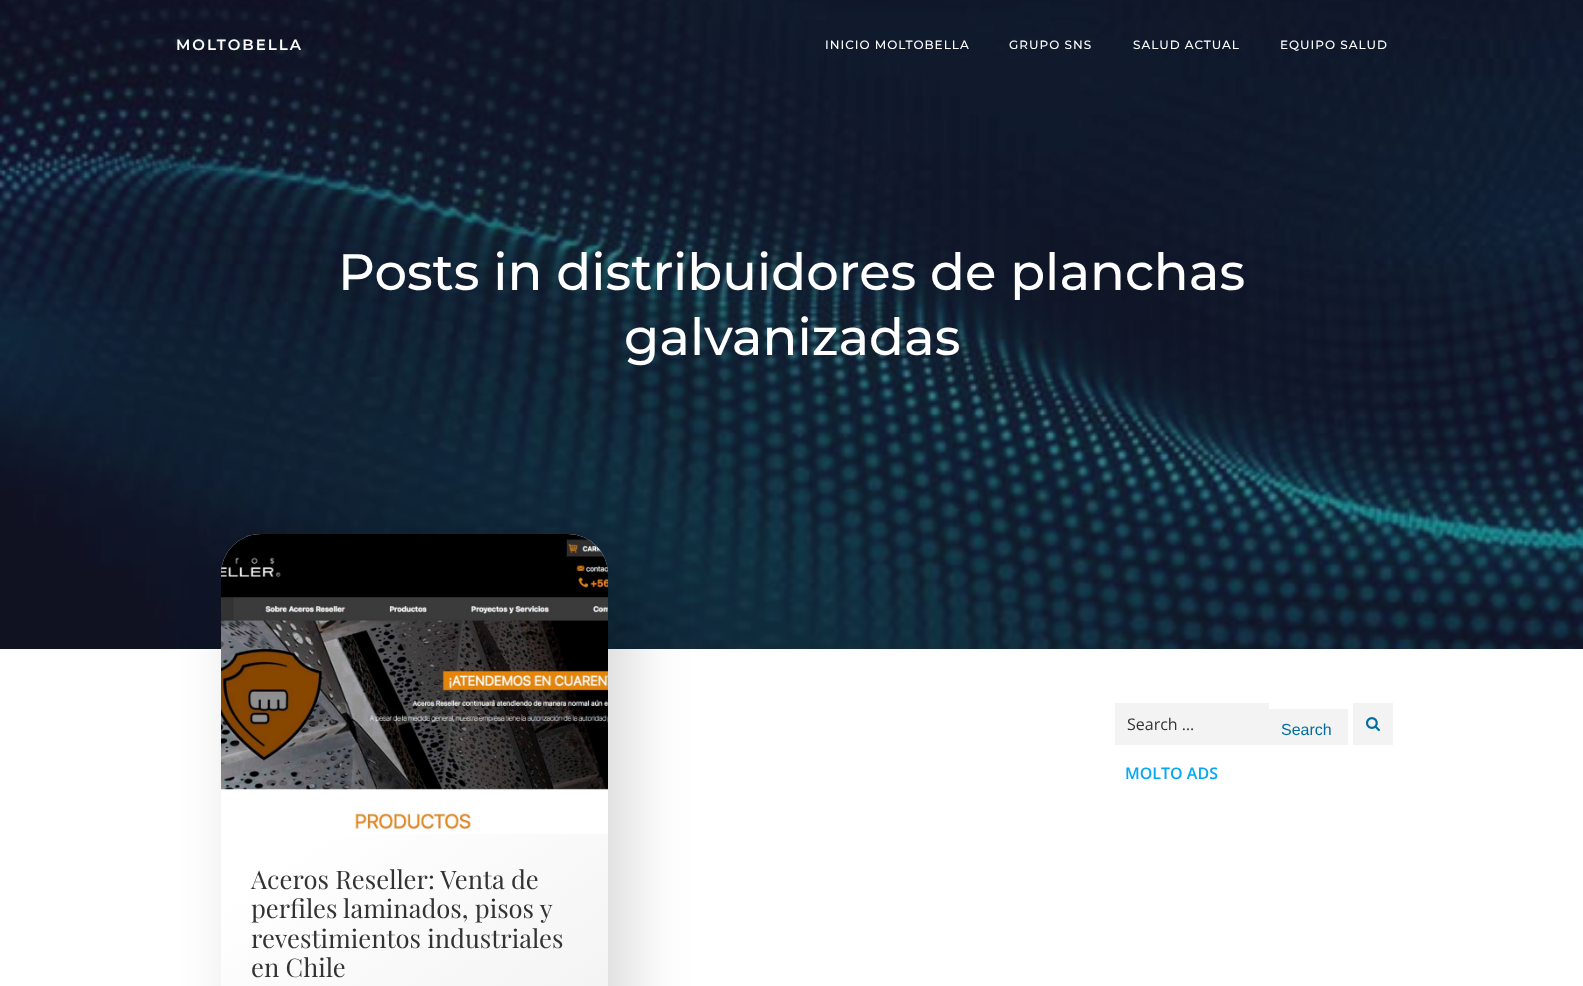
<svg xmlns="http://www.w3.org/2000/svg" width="1583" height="986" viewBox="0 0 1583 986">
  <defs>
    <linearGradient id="g1" gradientUnits="userSpaceOnUse" x1="208" y1="543" x2="621" y2="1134"><stop offset="0.42" stop-color="rgb(255,255,255)"/><stop offset="1" stop-color="rgb(239,239,239)"/></linearGradient>
  </defs>
  <rect width="100%" height="100%" fill="rgb(255,255,255)"/>
  <image x="0" y="0" width="1583" height="649" href="pic1.png"/>
  <text x="176" y="50" font-family="Montserrat" font-size="15" font-weight="600" letter-spacing="2" fill="rgb(255,255,255)">MOLTOBELLA</text>
  <g font-family="Montserrat" font-size="12" font-weight="500" letter-spacing="1" fill="rgb(255,255,255)">
    <text x="825" y="49">INICIO MOLTOBELLA</text>
    <text x="1009" y="49">GRUPO SNS</text>
    <text x="1133" y="49">SALUD ACTUAL</text>
    <text x="1280" y="49">EQUIPO SALUD</text>
  </g>
  <g font-family="Montserrat" font-size="51.25" font-weight="500" fill="rgb(255,255,255)">
    <text x="338" y="290">Posts in distribuidores de planchas</text>
    <text x="624" y="355">galvanizadas</text>
  </g>
  <rect x="1115" y="703" width="154" height="42" fill="rgb(243,243,243)"/>
  <text x="1127" y="730" font-family="Open Sans" font-size="16" fill="rgb(51,51,51)">Search …</text>
  <rect x="1269" y="709" width="79" height="36" fill="rgb(243,243,243)"/>
  <text x="1281" y="735" font-family="Liberation Sans" font-size="16" fill="rgb(2,110,159)">Search</text>
  <rect x="1353" y="703" width="40" height="42" fill="rgb(243,243,243)"/>
  <image x="1366" y="717" width="14" height="15" href="pic2.png"/>
  <text x="1125" y="779" font-family="Open Sans" font-size="16" font-weight="600" fill="rgb(3,169,244)">MOLTO ADS</text>
  <rect x="239" y="552" width="391" height="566" rx="42" fill="rgba(0,0,0,0.15)" filter="blur(30px)"/>
  <rect x="221" y="534" width="387" height="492" rx="40" fill="url(#g1)"/>
  <image x="221" y="534" width="387" height="300" href="pic3.png"/>
  <g font-family="Playfair Display" font-size="25.6" fill="rgb(51,51,51)">
    <text>
      <tspan x="251" y="889">Aceros Reseller: Venta de</tspan>
      <tspan x="251" y="918">perfiles laminados, pisos y</tspan>
      <tspan x="251" y="948">revestimientos industriales</tspan>
      <tspan x="251" y="977">en Chile</tspan>
    </text>
  </g>
</svg>
